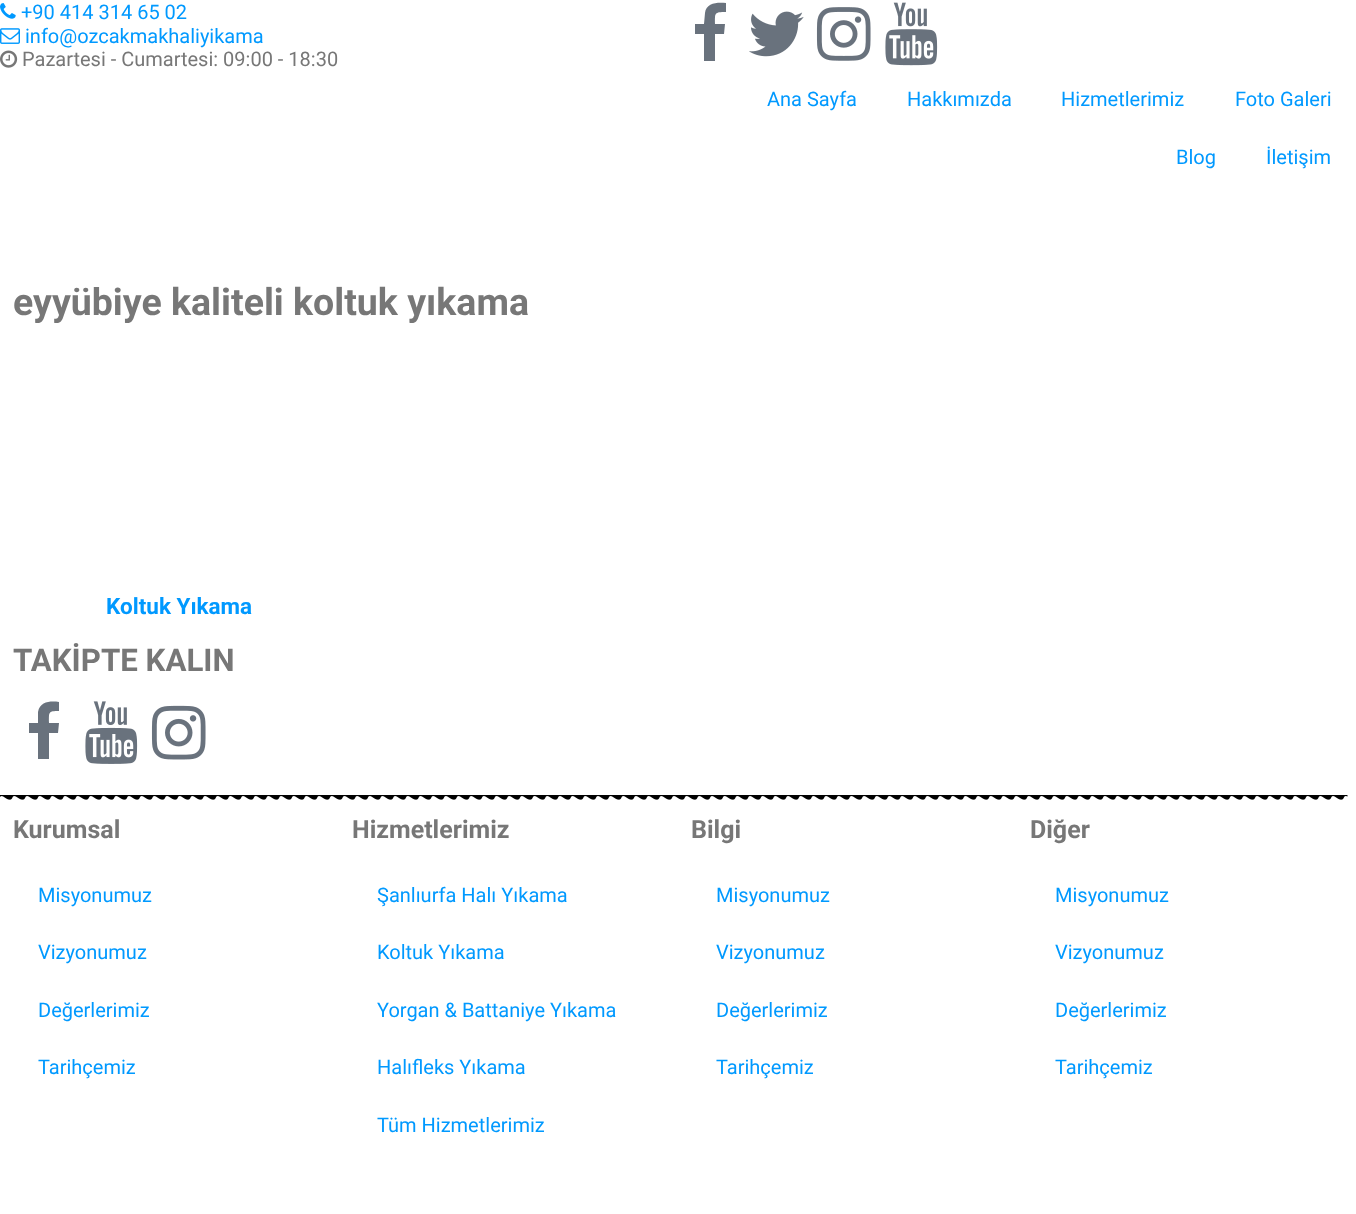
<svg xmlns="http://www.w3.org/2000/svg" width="1356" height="1214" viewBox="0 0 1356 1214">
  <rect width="100%" height="100%" fill="rgb(255,255,255)"/>
  <image x="0" y="3" width="16" height="16" href="pic1.png"/>
  <text x="21" y="19" font-family="Roboto" font-size="20" fill="rgb(0,153,255)">+90 414 314 65 02</text>
  <image x="0" y="28" width="20" height="16" href="pic2.png"/>
  <text x="25" y="43" font-family="Roboto" font-size="20" fill="rgb(0,153,255)">info@ozcakmakhaliyikama</text>
  <image x="0" y="50" width="18" height="18" href="pic3.png"/>
  <text x="22" y="66" font-family="Roboto" font-size="20" fill="rgb(119,119,119)">Pazartesi - Cumartesi: 09:00 - 18:30</text>
  <path d="M726 3C717 2 706 3 705 13L704 24H695V34H704V61H715V34H724L725 24H715C715 13 714 12 726 12Z" fill="rgb(105,114,125)"/>
  <image x="749" y="11" width="55" height="46" href="pic4.png"/>
  <image x="816" y="7" width="55" height="54" href="pic5.png"/>
  <image x="885" y="2" width="53" height="64" href="pic6.png"/>
  <g font-family="Roboto" font-size="20" fill="rgb(0,153,255)">
    <text x="767" y="106">Ana Sayfa</text>
    <text x="907" y="106">Hakkımızda</text>
    <text x="1061" y="106">Hizmetlerimiz</text>
    <text x="1235" y="106">Foto Galeri</text>
    <text x="1176" y="164">Blog</text>
    <text x="1266" y="164">İletişim</text>
  </g>
  <text x="13" y="315" font-family="Roboto" font-size="37.5" font-weight="bold" fill="rgb(119,119,119)">eyyübiye kaliteli koltuk yıkama</text>
  <text x="106" y="614" font-family="Roboto" font-size="22.5" font-weight="bold" fill="rgb(0,153,255)">Koltuk Yıkama</text>
  <text x="13" y="671" font-family="Roboto" font-size="31.25" font-weight="bold" fill="rgb(119,119,119)">TAKİPTE KALIN</text>
  <path d="M59 702C51 701 40 701 38 712V723H29V733H38V759H49V733H58L59 723H49C49 712 48 711 59 711Z" fill="rgb(105,114,125)"/>
  <image x="85" y="701" width="53" height="63" href="pic7.png"/>
  <image x="151" y="705" width="55" height="55" href="pic8.png"/>
  <image x="0" y="795" width="1348" height="5" href="pic9.png"/>
  <text x="13" y="838" font-family="Roboto" font-size="25" font-weight="bold" fill="rgb(119,119,119)">Kurumsal</text>
  <g font-family="Roboto" font-size="20" fill="rgb(0,153,255)">
    <text x="38" y="902">Misyonumuz</text>
    <text x="38" y="959">Vizyonumuz</text>
    <text x="38" y="1017">Değerlerimiz</text>
    <text x="38" y="1074">Tarihçemiz</text>
  </g>
  <text x="352" y="838" font-family="Roboto" font-size="25" font-weight="bold" fill="rgb(119,119,119)">Hizmetlerimiz</text>
  <g font-family="Roboto" font-size="20" fill="rgb(0,153,255)">
    <text x="377" y="902">Şanlıurfa Halı Yıkama</text>
    <text x="377" y="959">Koltuk Yıkama</text>
    <text x="377" y="1017">Yorgan &amp; Battaniye Yıkama</text>
    <text x="377" y="1074">Halıfleks Yıkama</text>
    <text x="377" y="1132">Tüm Hizmetlerimiz</text>
  </g>
  <text x="691" y="838" font-family="Roboto" font-size="25" font-weight="bold" fill="rgb(119,119,119)">Bilgi</text>
  <g font-family="Roboto" font-size="20" fill="rgb(0,153,255)">
    <text x="716" y="902">Misyonumuz</text>
    <text x="716" y="959">Vizyonumuz</text>
    <text x="716" y="1017">Değerlerimiz</text>
    <text x="716" y="1074">Tarihçemiz</text>
  </g>
  <text x="1030" y="838" font-family="Roboto" font-size="25" font-weight="bold" fill="rgb(119,119,119)">Diğer</text>
  <g font-family="Roboto" font-size="20" fill="rgb(0,153,255)">
    <text x="1055" y="902">Misyonumuz</text>
    <text x="1055" y="959">Vizyonumuz</text>
    <text x="1055" y="1017">Değerlerimiz</text>
    <text x="1055" y="1074">Tarihçemiz</text>
  </g>
</svg>
